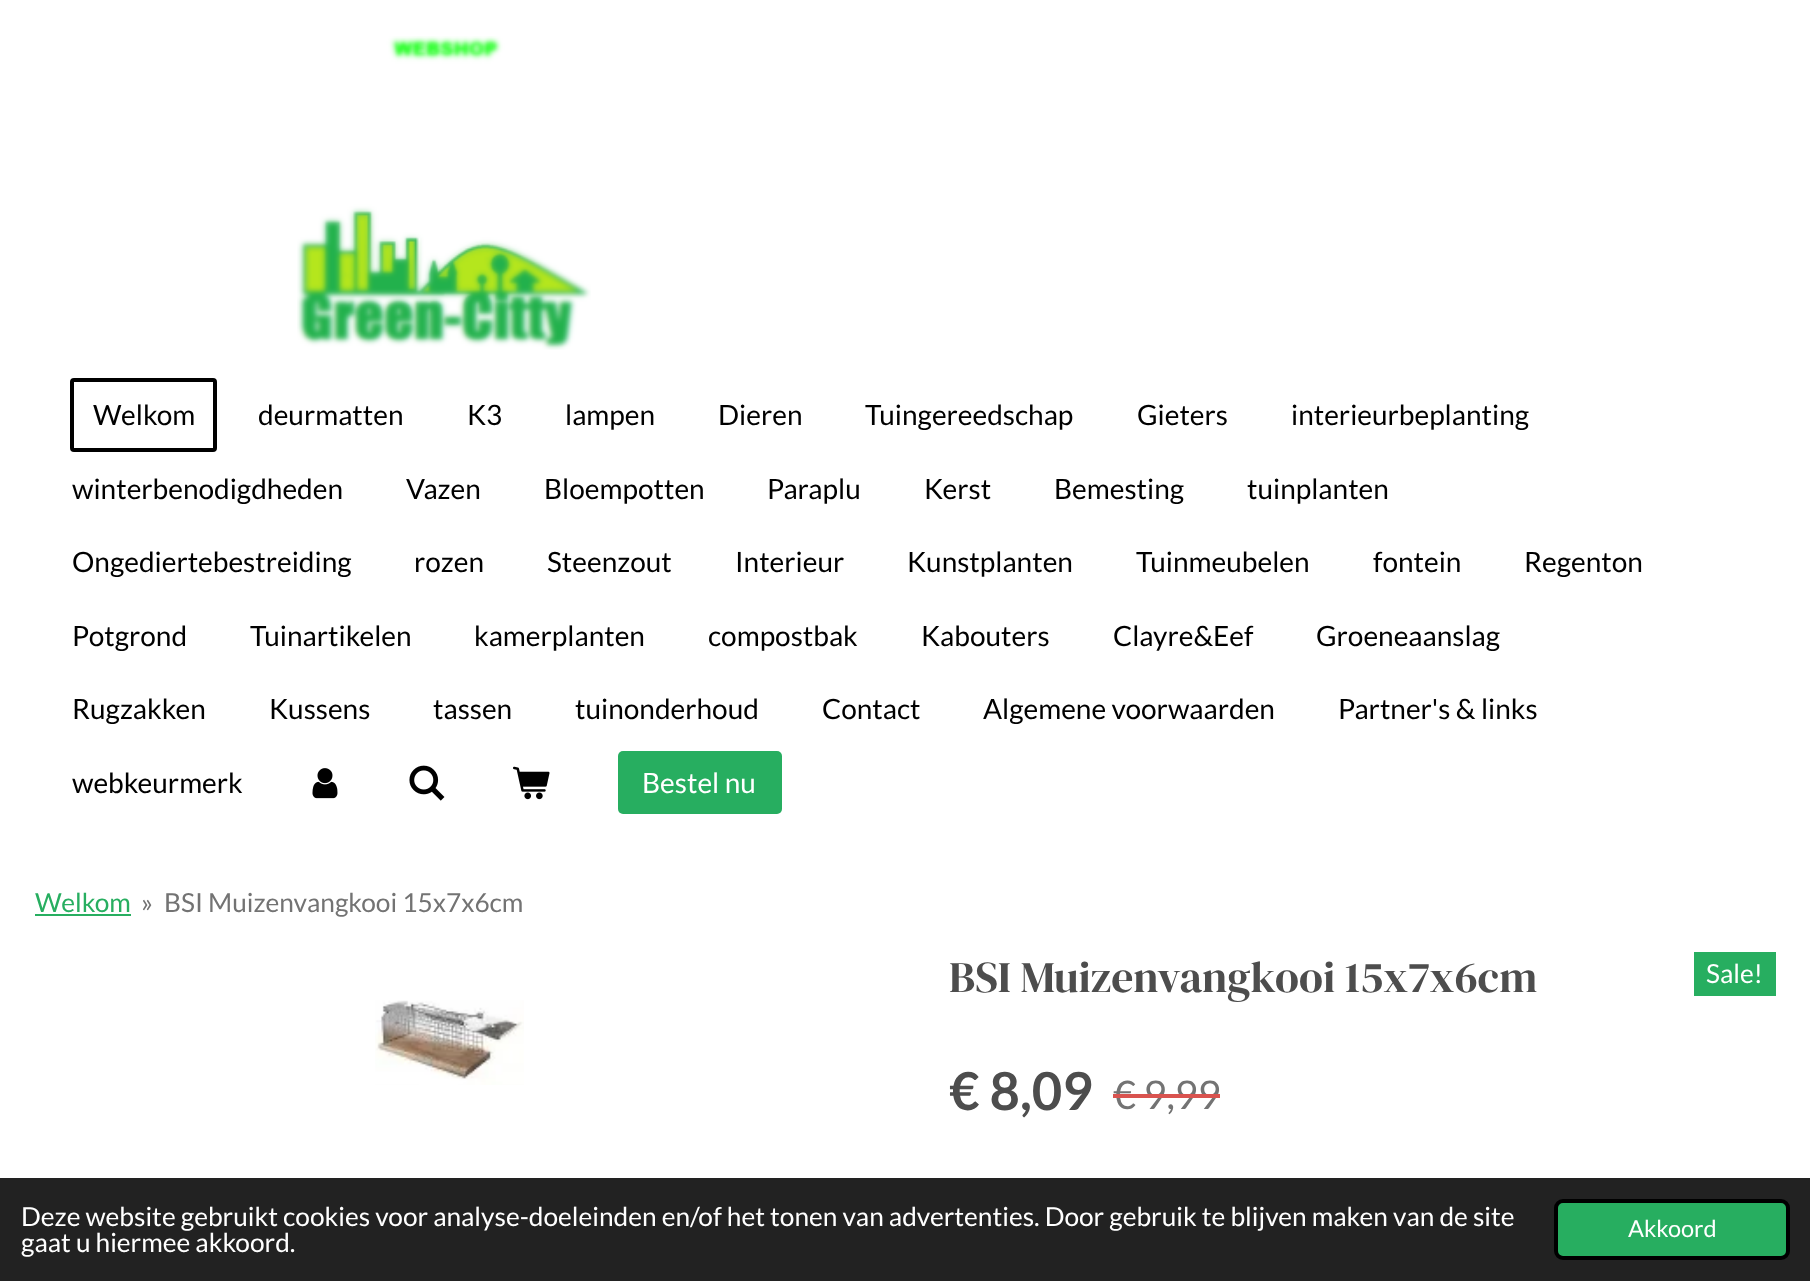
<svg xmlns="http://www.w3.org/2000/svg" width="1810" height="1281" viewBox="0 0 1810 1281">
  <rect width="100%" height="100%" fill="rgb(255,255,255)"/>
  <image x="297" y="36" width="294" height="314" href="pic1.png"/>
  <rect x="72" y="380" width="143" height="70" rx="2" fill="none" stroke="rgb(0,0,0)" stroke-width="4"/>
  <g font-family="Lato" font-size="28" fill="rgb(0,0,0)">
    <text x="93" y="425">Welkom</text>
    <text x="258" y="425">deurmatten</text>
    <text x="467" y="425">K3</text>
    <text x="565" y="425">lampen</text>
    <text x="718" y="425">Dieren</text>
    <text x="865" y="425">Tuingereedschap</text>
    <text x="1137" y="425">Gieters</text>
    <text x="1291" y="425">interieurbeplanting</text>
    <text x="72" y="499">winterbenodigdheden</text>
    <text x="406" y="499">Vazen</text>
    <text x="544" y="499">Bloempotten</text>
    <text x="767" y="499">Paraplu</text>
    <text x="924" y="499">Kerst</text>
    <text x="1054" y="499">Bemesting</text>
    <text x="1247" y="499">tuinplanten</text>
    <text x="72" y="572">Ongediertebestreiding</text>
    <text x="414" y="572">rozen</text>
    <text x="547" y="572">Steenzout</text>
    <text x="735" y="572">Interieur</text>
    <text x="907" y="572">Kunstplanten</text>
    <text x="1136" y="572">Tuinmeubelen</text>
    <text x="1373" y="572">fontein</text>
    <text x="1524" y="572">Regenton</text>
    <text x="72" y="646">Potgrond</text>
    <text x="250" y="646">Tuinartikelen</text>
    <text x="474" y="646">kamerplanten</text>
    <text x="708" y="646">compostbak</text>
    <text x="921" y="646">Kabouters</text>
    <text x="1113" y="646">Clayre&amp;Eef</text>
    <text x="1316" y="646">Groeneaanslag</text>
    <text x="72" y="719">Rugzakken</text>
    <text x="269" y="719">Kussens</text>
    <text x="433" y="719">tassen</text>
    <text x="575" y="719">tuinonderhoud</text>
    <text x="822" y="719">Contact</text>
    <text x="983" y="719">Algemene voorwaarden</text>
    <text x="1338" y="719">Partner's &amp; links</text>
    <text x="72" y="793">webkeurmerk</text>
  </g>
  <image x="312" y="768" width="26" height="31" href="pic2.png"/>
  <image x="409" y="765" width="36" height="36" href="pic3.png"/>
  <image x="513" y="766" width="37" height="34" href="pic4.png"/>
  <rect x="618" y="751" width="164" height="63" rx="5" fill="rgb(39,174,96)"/>
  <text x="642" y="793" font-family="Lato" font-size="28" fill="rgb(255,255,255)">Bestel nu</text>
  <text x="35" y="912" font-family="Lato" font-size="26.25" fill="rgb(39,174,96)">Welkom</text>
  <rect x="35" y="914" width="96" height="2" fill="rgb(39,174,96)"/>
  <g font-family="Lato" font-size="26.25" fill="rgb(115,115,115)">
    <text x="141" y="912">»</text>
    <text x="164" y="912">BSI Muizenvangkooi 15x7x6cm</text>
  </g>
  <text x="949" y="992" font-family="DM Serif Display" font-size="43.75" fill="rgb(77,77,77)">BSI Muizenvangkooi 15x7x6cm</text>
  <rect x="1694" y="952" width="82" height="44" fill="rgb(39,174,96)"/>
  <text x="1706" y="983" font-family="Lato" font-size="26.25" fill="rgb(255,255,255)">Sale!</text>
  <image x="375" y="1000" width="149" height="85" href="pic5.png"/>
  <text x="949" y="1110" font-family="Lato" font-size="52.5" font-weight="bold" fill="rgb(77,77,77)">€ 8,09</text>
  <text x="1113" y="1109" font-family="Lato" font-size="39.5" fill="rgb(115,115,115)">€ 9,99</text>
  <rect x="1113" y="1094" width="107" height="4" fill="rgb(217,83,79)"/>
  <rect x="0" y="1178" width="1810" height="103" fill="rgb(34,34,34)"/>
  <g font-family="Lato" font-size="26.25" fill="rgb(255,255,255)">
    <text>
      <tspan x="21" y="1226">Deze website gebruikt cookies voor analyse-doeleinden en/of het tonen van advertenties. Door gebruik te blijven maken van de site</tspan>
      <tspan x="21" y="1252">gaat u hiermee akkoord.</tspan>
    </text>
  </g>
  <rect x="1556" y="1201" width="232" height="57" rx="7" fill="rgb(39,174,96)" stroke="rgb(0,0,0)" stroke-width="4"/>
  <text x="1628" y="1237" font-family="Lato" font-size="23.5" fill="rgb(255,255,255)">Akkoord</text>
</svg>
